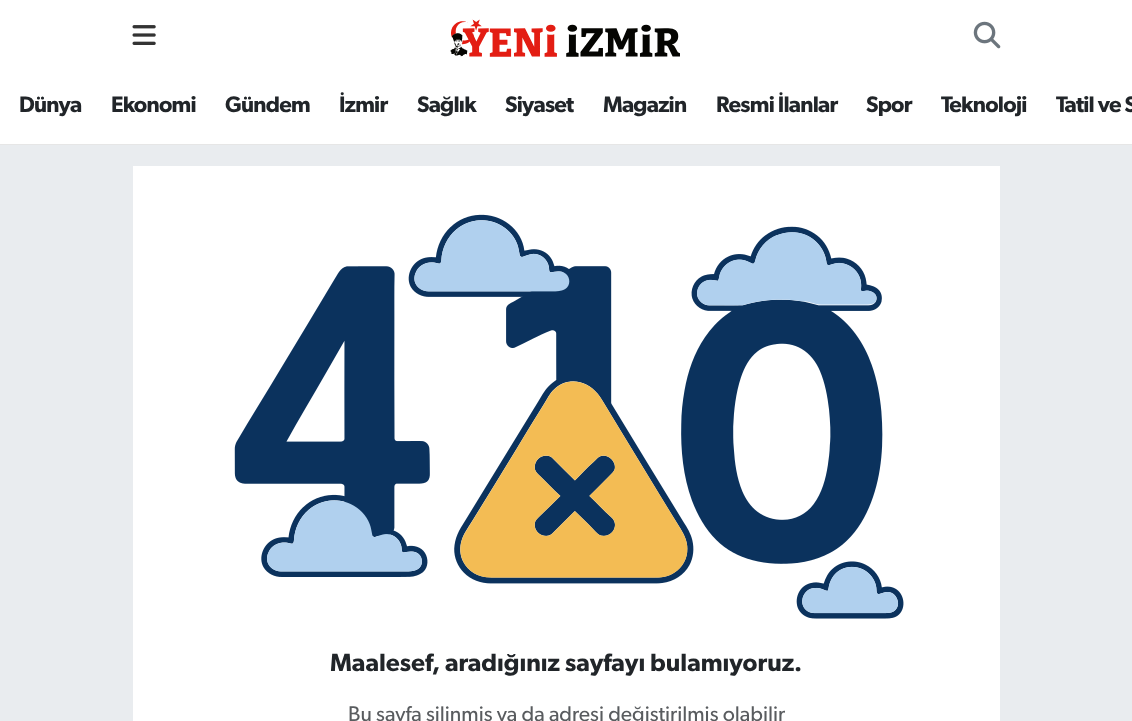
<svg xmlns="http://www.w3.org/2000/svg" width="1132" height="721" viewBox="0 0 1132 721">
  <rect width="100%" height="100%" fill="rgb(233,236,239)"/>
  <rect x="0" y="0" width="1132" height="144" fill="rgb(255,255,255)"/>
  <image x="132" y="25" width="24" height="20" href="pic1.png"/>
  <image x="450" y="19" width="230" height="38" href="pic2.png"/>
  <image x="973" y="21" width="28" height="28" href="pic3.png"/>
  <rect x="0" y="144" width="1132" height="1" fill="rgb(230,230,230)"/>
  <g font-family="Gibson" font-size="22.5" font-weight="600" letter-spacing="-0.75" fill="rgb(33,37,41)">
    <text x="19" y="112">Dünya</text>
    <text x="111" y="112">Ekonomi</text>
    <text x="225" y="112">Gündem</text>
    <text x="339" y="112">İzmir</text>
    <text x="417" y="112">Sağlık</text>
    <text x="505" y="112">Siyaset</text>
    <text x="603" y="112">Magazin</text>
    <text x="716" y="112">Resmi İlanlar</text>
    <text x="866" y="112">Spor</text>
    <text x="941" y="112">Teknoloji</text>
    <text x="1056" y="112">Tatil ve S</text>
  </g>
  <rect x="133" y="166" width="867" height="555" fill="rgb(255,255,255)"/>
  <image x="234" y="214" width="670" height="405" href="pic4.png"/>
  <text x="330" y="671" font-family="Gibson" font-size="25" font-weight="600" fill="rgb(33,37,41)">Maalesef, aradığınız sayfayı bulamıyoruz.</text>
  <text x="348" y="721" font-family="Gibson" font-size="21.25" fill="rgb(89,92,95)">Bu sayfa silinmiş ya da adresi değiştirilmiş olabilir</text>
</svg>
